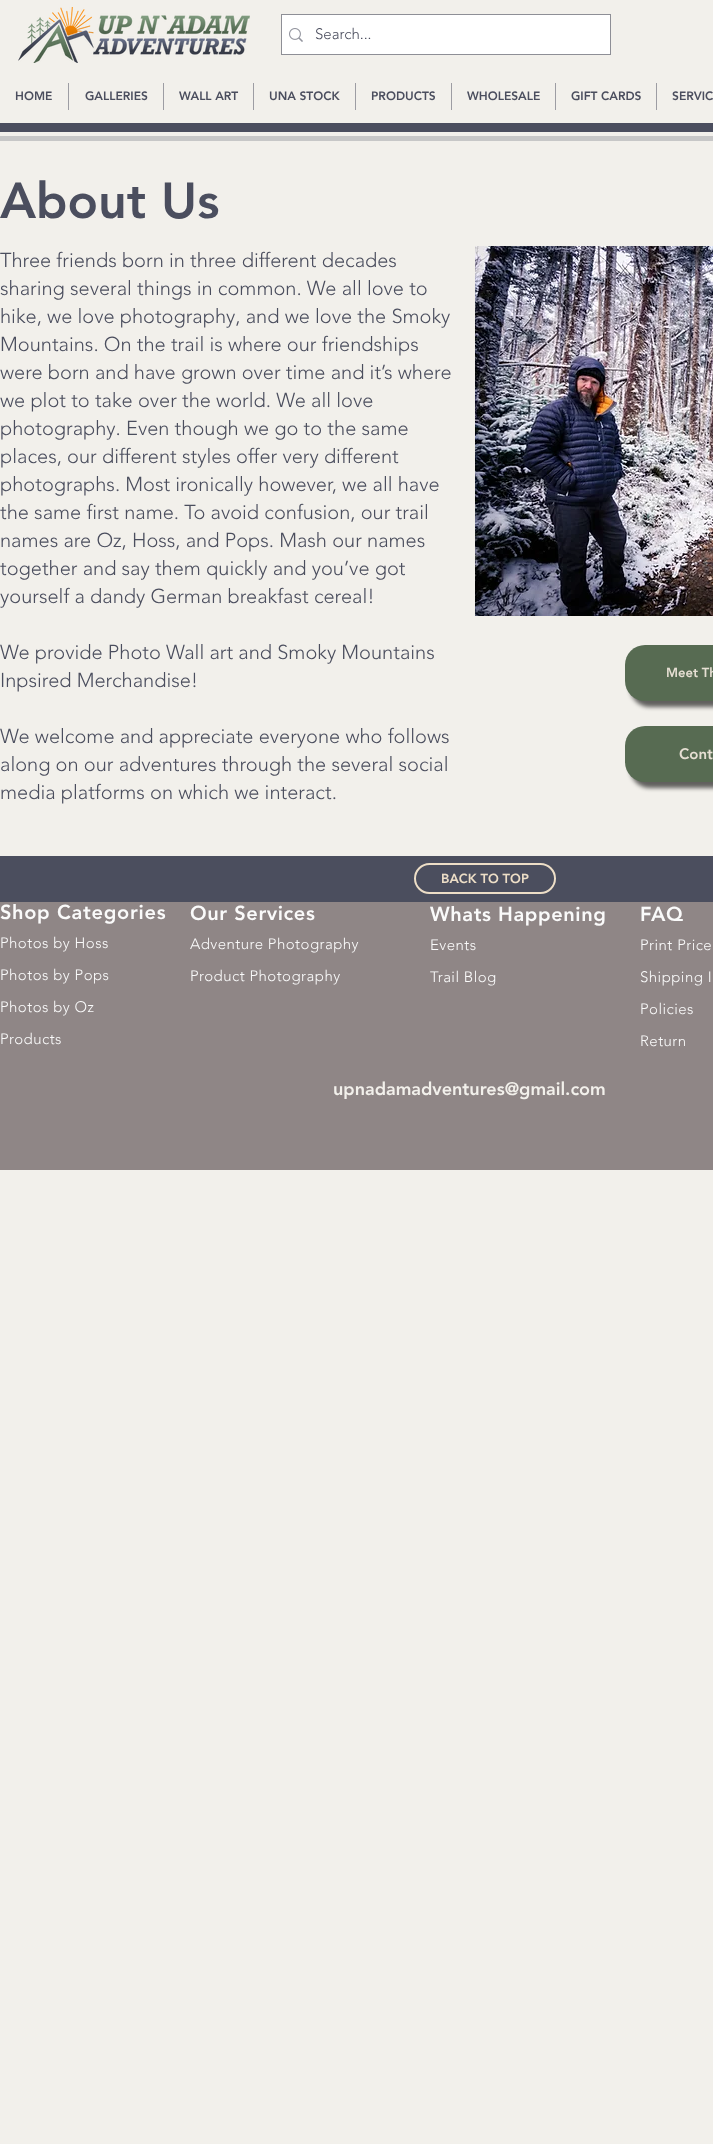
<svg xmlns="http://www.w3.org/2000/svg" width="713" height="2144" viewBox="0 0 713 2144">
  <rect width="100%" height="100%" fill="rgb(242,240,235)"/>
  <image x="18" y="7" width="232" height="56" href="pic1.png"/>
  <rect x="281.5" y="14.5" width="329" height="40" fill="none" stroke="rgb(142,143,150)"/>
  <rect x="282" y="15" width="328" height="39" fill="rgb(255,255,255)"/>
  <image x="289" y="28" width="14" height="14" href="pic2.png"/>
  <text x="315" y="39" font-family="'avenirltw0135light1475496'" font-size="15" font-weight="300" fill="rgb(75,78,94)">Search...</text>
  <text x="15" y="100" font-family="'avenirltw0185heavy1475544'" font-size="12" font-weight="900" fill="rgb(75,78,94)">HOME</text>
  <rect x="68" y="83" width="1" height="27" fill="rgb(157,157,163)"/>
  <text x="85" y="100" font-family="'avenirltw0185heavy1475544'" font-size="12" font-weight="900" fill="rgb(75,78,94)">GALLERIES</text>
  <rect x="163" y="83" width="1" height="27" fill="rgb(157,157,163)"/>
  <text x="179" y="100" font-family="'avenirltw0185heavy1475544'" font-size="12" font-weight="900" fill="rgb(75,78,94)">WALL ART</text>
  <rect x="253" y="83" width="1" height="27" fill="rgb(157,157,163)"/>
  <text x="269" y="100" font-family="'avenirltw0185heavy1475544'" font-size="12" font-weight="900" fill="rgb(75,78,94)">UNA STOCK</text>
  <rect x="355" y="83" width="1" height="27" fill="rgb(157,157,163)"/>
  <text x="371" y="100" font-family="'avenirltw0185heavy1475544'" font-size="12" font-weight="900" fill="rgb(75,78,94)">PRODUCTS</text>
  <rect x="451" y="83" width="1" height="27" fill="rgb(157,157,163)"/>
  <text x="467" y="100" font-family="'avenirltw0185heavy1475544'" font-size="12" font-weight="900" fill="rgb(75,78,94)">WHOLESALE</text>
  <rect x="555" y="83" width="1" height="27" fill="rgb(157,157,163)"/>
  <text x="571" y="100" font-family="'avenirltw0185heavy1475544'" font-size="12" font-weight="900" fill="rgb(75,78,94)">GIFT CARDS</text>
  <rect x="656" y="83" width="1" height="27" fill="rgb(157,157,163)"/>
  <text x="672" y="100" font-family="'avenirltw0185heavy1475544'" font-size="12" font-weight="900" fill="rgb(75,78,94)">SERVIC</text>
  <rect x="0" y="123" width="713" height="9" fill="rgb(75,78,94)"/>
  <rect x="0" y="136" width="713" height="5" fill="rgb(199,199,199)"/>
  <text x="0" y="218" font-family="'avenirltw0185heavy1475544'" font-size="50" font-weight="900" fill="rgb(75,78,94)">About Us</text>
  <g font-family="'avenirltw0135light1475496'" font-size="20" font-weight="300" fill="rgb(75,78,94)">
    <text>
      <tspan x="0" y="267">Three friends born in three different decades</tspan>
      <tspan x="0" y="295">sharing several things in common. We all love to</tspan>
      <tspan x="0" y="323">hike, we love photography, and we love the Smoky</tspan>
      <tspan x="0" y="351">Mountains. On the trail is where our friendships</tspan>
      <tspan x="0" y="379">were born and have grown over time and it’s where</tspan>
      <tspan x="0" y="407">we plot to take over the world. We all love</tspan>
      <tspan x="0" y="435">photography. Even though we go to the same</tspan>
      <tspan x="0" y="463">places, our different styles offer very different</tspan>
      <tspan x="0" y="491">photographs. Most ironically however, we all have</tspan>
      <tspan x="0" y="519">the same first name. To avoid confusion, our trail</tspan>
      <tspan x="0" y="547">names are Oz, Hoss, and Pops. Mash our names</tspan>
      <tspan x="0" y="575">together and say them quickly and you’ve got</tspan>
      <tspan x="0" y="603">yourself a dandy German breakfast cereal!</tspan>
    </text>
    <text>
      <tspan x="0" y="659">We provide Photo Wall art and Smoky Mountains</tspan>
      <tspan x="0" y="687">Inpsired Merchandise!</tspan>
    </text>
    <text>
      <tspan x="0" y="743">We welcome and appreciate everyone who follows</tspan>
      <tspan x="0" y="771">along on our adventures through the several social</tspan>
      <tspan x="0" y="799">media platforms on which we interact.</tspan>
    </text>
  </g>
  <image x="475" y="246" width="238" height="370" href="pic3.png"/>
  <rect x="630" y="651" width="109" height="56" rx="20" fill="rgba(0,0,0,0.6)" filter="blur(2px)"/>
  <rect x="625" y="645" width="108" height="56" rx="20" fill="rgb(87,107,82)"/>
  <text x="666" y="677" font-family="'avenirltw0185heavy1475544'" font-size="13" font-weight="900" fill="rgb(230,223,211)">Meet Th</text>
  <rect x="630" y="732" width="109" height="56" rx="20" fill="rgba(0,0,0,0.6)" filter="blur(2px)"/>
  <rect x="625" y="726" width="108" height="56" rx="20" fill="rgb(87,107,82)"/>
  <text x="679" y="759" font-family="'avenirltw0185heavy1475544'" font-size="15" font-weight="900" fill="rgb(230,223,211)">Cont</text>
  <rect x="0" y="856" width="713" height="46" fill="rgb(75,78,94)"/>
  <rect x="415" y="864" width="140" height="29" rx="14.5" fill="none" stroke="rgb(237,222,199)" stroke-width="2"/>
  <text x="441" y="883" font-family="'avenirltw0185heavy1475544'" font-size="13" font-weight="900" fill="rgb(237,222,199)">BACK TO TOP</text>
  <rect x="0" y="902" width="713" height="268" fill="rgb(143,134,134)"/>
  <text x="0" y="919" font-family="'avenirltw0185heavy1475544'" font-size="20" font-weight="900" letter-spacing="0.6" fill="rgb(250,250,250)">Shop</text>
  <text x="57" y="919" font-family="'avenirltw0185heavy1475544'" font-size="20" font-weight="900" letter-spacing="0.75" fill="rgb(250,250,250)">Categories</text>
  <g font-family="'avenirltw0135light1475496'" font-size="15" font-weight="300" letter-spacing="0.45" fill="rgb(250,250,250)">
    <text x="0" y="948">Photos by Hoss</text>
    <text x="0" y="980">Photos by Pops</text>
    <text x="0" y="1012">Photos by Oz</text>
    <text x="0" y="1044">Products</text>
  </g>
  <text x="190" y="920" font-family="'avenirltw0185heavy1475544'" font-size="20" font-weight="900" letter-spacing="0.6" fill="rgb(250,250,250)">Our Services</text>
  <g font-family="'avenirltw0135light1475496'" font-size="15" font-weight="300" letter-spacing="0.45" fill="rgb(250,250,250)">
    <text x="190" y="949">Adventure Photography</text>
    <text x="190" y="981">Product Photography</text>
  </g>
  <text x="430" y="921" font-family="'avenirltw0185heavy1475544'" font-size="20" font-weight="900" letter-spacing="0.6" fill="rgb(250,250,250)">Whats Happening</text>
  <g font-family="'avenirltw0135light1475496'" font-size="15" font-weight="300" letter-spacing="0.45" fill="rgb(250,250,250)">
    <text x="430" y="950">Events</text>
    <text x="430" y="982">Trail Blog</text>
  </g>
  <text x="640" y="921" font-family="'avenirltw0185heavy1475544'" font-size="20" font-weight="900" letter-spacing="0.6" fill="rgb(250,250,250)">FAQ</text>
  <g font-family="'avenirltw0135light1475496'" font-size="15" font-weight="300" letter-spacing="0.45" fill="rgb(250,250,250)">
    <text x="640" y="950">Print Price</text>
    <text x="640" y="982">Shipping I</text>
    <text x="640" y="1014">Policies</text>
    <text x="640" y="1046">Return</text>
  </g>
  <text x="333" y="1095" font-family="'avenirltw0185heavy1475544'" font-size="18" font-weight="900" fill="rgb(242,240,235)">upnadamadventures@gmail.com</text>
</svg>
